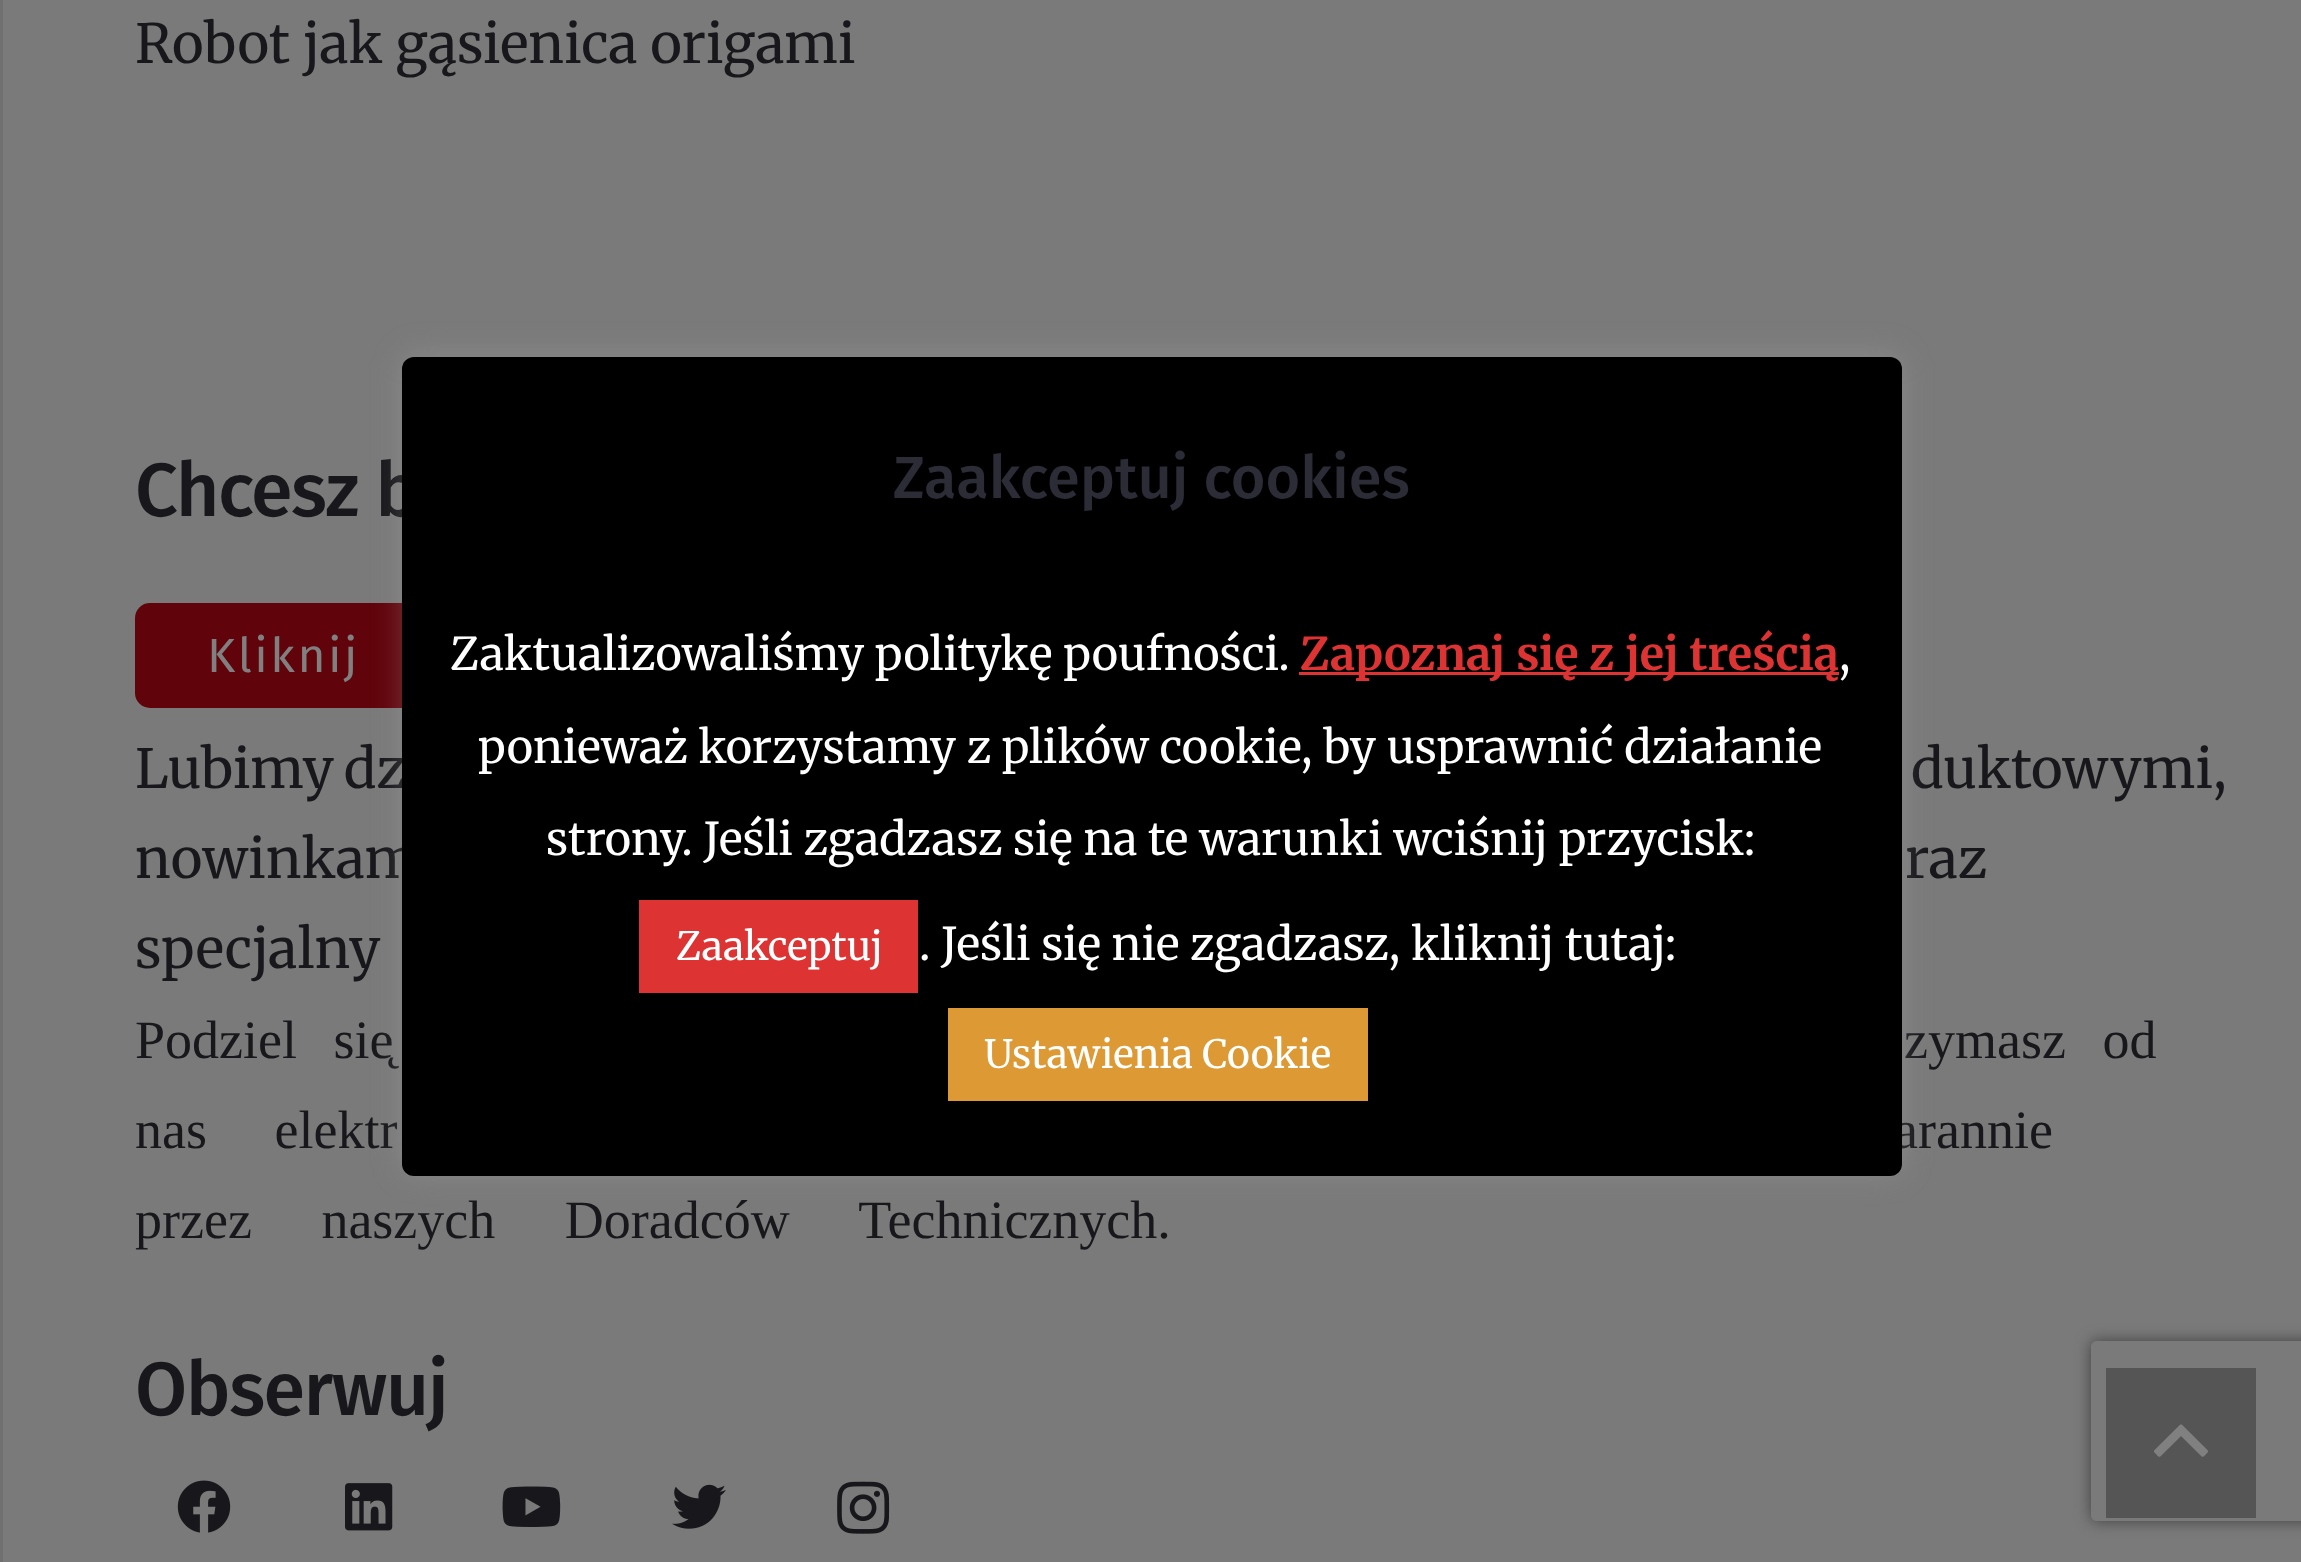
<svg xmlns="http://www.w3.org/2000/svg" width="2301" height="1562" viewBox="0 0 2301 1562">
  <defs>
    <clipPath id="clip1"><path d="M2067 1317H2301V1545H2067ZM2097 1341H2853C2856.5 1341 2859 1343.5 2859 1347V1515C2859 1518.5 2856.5 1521 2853 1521H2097C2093.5 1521 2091 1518.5 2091 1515V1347C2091 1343.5 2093.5 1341 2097 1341Z" clip-rule="evenodd"/></clipPath>
  </defs>
  <rect width="100%" height="100%" fill="rgb(122,122,122)"/>
  <rect x="0" y="0" width="3" height="1562" fill="rgb(112,112,112)"/>
  <text x="135" y="63" font-family="Merriweather" font-size="54" fill="rgb(24,24,28)">Robot jak gąsienica origami</text>
  <text x="135" y="516" font-family="Fira Sans" font-size="75.5" font-weight="500" letter-spacing="-1.5" fill="rgb(24,24,28)">Chcesz b</text>
  <rect x="135" y="603" width="297" height="105" rx="15" fill="rgb(97,3,11)"/>
  <text x="207" y="672" font-family="Fira Sans" font-size="48" letter-spacing="2.5" fill="rgb(128,128,128)">Kliknij</text>
  <g font-family="Merriweather" font-size="54" fill="rgb(24,24,28)">
    <text x="135" y="788" word-spacing="-3">Lubimy dz</text>
    <text x="1911" y="788" word-spacing="-3">duktowymi,</text>
    <text x="135" y="878">nowinkam</text>
    <text x="1905" y="878">raz</text>
    <text x="135" y="968">specjalny</text>
  </g>
  <g font-family="Liberation Serif" font-size="54" fill="rgb(24,24,28)">
    <text x="135" y="1058" word-spacing="23">Podziel się</text>
    <text x="1904" y="1058" word-spacing="23">zymasz od</text>
    <text x="135" y="1148" word-spacing="54">nas elektr</text>
    <text x="1894" y="1148" word-spacing="54">arannie</text>
    <text x="135" y="1238" word-spacing="56">przez naszych Doradców Technicznych.</text>
  </g>
  <text x="135" y="1415" font-family="Fira Sans" font-size="75.5" font-weight="500" letter-spacing="-1.5" fill="rgb(24,24,28)">Obserwuj</text>
  <image x="177" y="1480" width="54" height="53" href="pic1.png"/>
  <image x="345" y="1483" width="48" height="48" href="pic2.png"/>
  <image x="502" y="1486" width="59" height="41" href="pic3.png"/>
  <image x="672" y="1484" width="54" height="45" href="pic4.png"/>
  <image x="837" y="1481" width="53" height="53" href="pic5.png"/>
  <rect x="402" y="354" width="1500" height="819" rx="12" fill="rgba(172,171,171,0.3)" filter="blur(15px)"/>
  <rect x="402" y="357" width="1500" height="819" rx="12" fill="rgb(0,0,0)"/>
  <text x="893" y="498" font-family="Fira Sans" font-size="59.5" font-weight="500" fill="rgb(43,44,54)">Zaakceptuj cookies</text>
  <text x="450" y="670" font-family="Merriweather" font-size="45" fill="rgb(255,255,255)">Zaktualizowaliśmy politykę poufności.</text>
  <rect x="1299" y="672" width="540" height="3" fill="rgb(221,51,51)"/>
  <text x="1300" y="670" font-family="Merriweather" font-size="45" font-weight="bold" fill="rgb(221,51,51)">Zapoznaj się z jej treścią</text>
  <g font-family="Merriweather" font-size="45" fill="rgb(255,255,255)">
    <text x="1839" y="670">,</text>
    <text x="478" y="763">ponieważ korzystamy z plików cookie, by usprawnić działanie</text>
    <text x="546" y="855">strony. Jeśli zgadzasz się na te warunki wciśnij przycisk:</text>
  </g>
  <rect x="639" y="900" width="279" height="93" fill="rgb(221,51,51)"/>
  <text x="676" y="960" font-family="Merriweather" font-size="39" fill="rgb(255,255,255)">Zaakceptuj</text>
  <text x="919" y="960" font-family="Merriweather" font-size="45" fill="rgb(255,255,255)">. Jeśli się nie zgadzasz, kliknij tutaj:</text>
  <rect x="948" y="1008" width="420" height="93" fill="rgb(221,153,51)"/>
  <text x="984" y="1068" font-family="Merriweather" font-size="39" fill="rgb(255,255,255)">Ustawienia Cookie</text>
  <g clip-path="url(#clip1)">
    <rect x="2091" y="1341" width="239" height="180" rx="6" fill="rgb(64,64,64)" filter="blur(7.5px)"/>
  </g>
  <rect x="2106" y="1368" width="150" height="150" fill="rgb(85,85,85)"/>
  <image x="2154" y="1424" width="54" height="33" href="pic6.png"/>
</svg>
